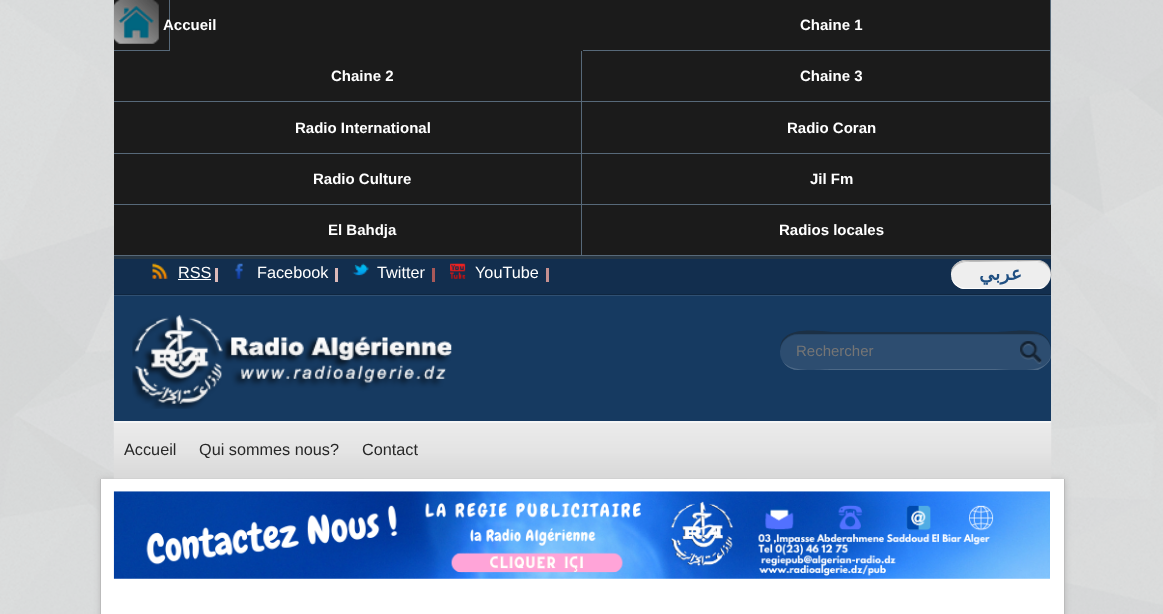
<svg xmlns="http://www.w3.org/2000/svg" width="1163" height="614" viewBox="0 0 1163 614">
  <rect width="100%" height="100%" fill="rgb(255,255,255)"/>
  <image x="0" y="0" width="1163" height="614" href="pic1.png"/>
  <rect x="114" y="0" width="937" height="255" fill="rgb(27,27,27)"/>
  <rect x="114" y="256" width="937" height="3" fill="rgb(40,55,68)"/>
  <image x="113" y="0" width="46" height="44" href="pic2.png"/>
  <rect x="169" y="0" width="1" height="51" fill="rgb(87,105,121)"/>
  <rect x="114" y="50" width="56" height="1" fill="rgb(87,105,121)"/>
  <text x="163" y="30" font-family="Liberation Sans" font-size="15" font-weight="bold" fill="rgb(255,255,255)">Accueil</text>
  <rect x="1050" y="0" width="1" height="205" fill="rgb(87,105,121)"/>
  <rect x="583" y="50" width="468" height="1" fill="rgb(87,105,121)"/>
  <text x="800" y="30" font-family="Liberation Sans" font-size="15" font-weight="bold" fill="rgb(255,255,255)">Chaine 1</text>
  <rect x="581" y="51" width="1" height="205" fill="rgb(87,105,121)"/>
  <rect x="114" y="101" width="937" height="1" fill="rgb(87,105,121)"/>
  <g font-family="Liberation Sans" font-size="15" font-weight="bold" fill="rgb(255,255,255)">
    <text x="331" y="81">Chaine 2</text>
    <text x="800" y="81">Chaine 3</text>
  </g>
  <rect x="114" y="153" width="937" height="1" fill="rgb(87,105,121)"/>
  <g font-family="Liberation Sans" font-size="15" font-weight="bold" fill="rgb(255,255,255)">
    <text x="295" y="133">Radio International</text>
    <text x="787" y="133">Radio Coran</text>
  </g>
  <rect x="114" y="204" width="937" height="1" fill="rgb(87,105,121)"/>
  <g font-family="Liberation Sans" font-size="15" font-weight="bold" fill="rgb(255,255,255)">
    <text x="313" y="184">Radio Culture</text>
    <text x="810" y="184">Jil Fm</text>
  </g>
  <rect x="114" y="255" width="937" height="1" fill="rgb(87,105,121)"/>
  <g font-family="Liberation Sans" font-size="15" font-weight="bold" fill="rgb(255,255,255)">
    <text x="328" y="235">El Bahdja</text>
    <text x="779" y="235">Radios locales</text>
  </g>
  <rect x="114" y="259" width="937" height="35" fill="rgb(18,46,78)"/>
  <rect x="114" y="294" width="937" height="1" fill="rgb(15,38,64)"/>
  <rect x="215" y="268" width="3" height="14" fill="rgb(219,185,185)"/>
  <image x="152" y="263" width="16" height="16" href="pic3.png"/>
  <text x="178" y="278" font-family="Liberation Sans" font-size="16.25" fill="rgb(255,255,255)">RSS</text>
  <rect x="178" y="279" width="33" height="1" fill="rgb(255,255,255)"/>
  <rect x="335" y="268" width="3" height="14" fill="rgb(219,185,185)"/>
  <image x="235" y="263" width="8" height="16" href="pic4.png"/>
  <text x="257" y="278" font-family="Liberation Sans" font-size="16.25" fill="rgb(255,255,255)">Facebook</text>
  <rect x="432" y="268" width="3" height="14" fill="rgb(168,89,89)"/>
  <image x="352" y="263" width="17" height="13" href="pic5.png"/>
  <text x="377" y="278" font-family="Liberation Sans" font-size="16.25" fill="rgb(255,255,255)">Twitter</text>
  <rect x="546" y="268" width="3" height="14" fill="rgb(197,144,144)"/>
  <image x="450" y="263" width="16" height="16" href="pic6.png"/>
  <text x="475" y="278" font-family="Liberation Sans" font-size="16.25" fill="rgb(255,255,255)">YouTube</text>
  <rect x="951" y="260" width="100" height="29" rx="14.5" fill="rgb(238,238,238)"/>
  <path d="M966 262H1037C1045 262 1051 268 1051 276V277C1053 270 1047 263 1040 262L978 261C968 261 953 260 951 273C953 267 959 262 966 262Z" fill="rgba(0,0,0,0.2)"/>
  <path d="M966 260C960 260 951 265 951 272C953 266 959 261 966 261H1037C1045 261 1051 267 1051 274C1051 266 1045 260 1037 260Z" fill="rgb(173,173,173)"/>
  <path d="M1040 289C1046 288 1050 282 1051 275C1050 283 1045 288 1037 288H966C959 288 953 283 951 277C952 283 957 288 963 289Z" fill="rgb(255,255,255)"/>
  <text x="1022" y="280" font-family="DejaVu Sans" font-size="19" font-weight="bold" direction="rtl" fill="rgb(31,79,130)">عربي</text>
  <rect x="114" y="296" width="937" height="125" fill="rgb(22,58,97)"/>
  <rect x="114" y="295" width="937" height="1" fill="rgb(48,80,114)"/>
  <image x="132" y="314" width="320" height="95" href="pic7.png"/>
  <rect x="780" y="333" width="271" height="37" rx="18" fill="rgb(45,77,112)"/>
  <path d="M798 335H1034C1043 335 1050 340 1051 349C1051 341 1043 334 1034 334H798C788 334 780 341 780 350V351C781 343 787 335 798 335Z" fill="rgba(0,0,0,0.1)"/>
  <path d="M798 334H1034C1045 334 1051 341 1051 351C1051 323 1015 332 997 332H834C822 332 780 323 780 350C780 341 789 334 798 334Z" fill="rgb(28,48,69)"/>
  <path d="M798 370H1011L995 369H831C820 369 780 376 780 352C780 362 788 370 798 370ZM1026 370H1038C1043 368 1051 362 1051 356V351C1051 366 1039 369 1026 370Z" fill="rgb(76,104,134)" fill-rule="evenodd"/>
  <text x="796" y="356" font-family="Liberation Sans" font-size="15" fill="rgb(117,117,117)">Rechercher</text>
  <image x="1020" y="341" width="22" height="23" href="pic8.png"/>
  <rect x="100" y="479" width="965" height="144" fill="rgb(187,187,187)" filter="blur(3px)"/>
  <image x="113" y="421" width="939" height="58" href="pic9.png"/>
  <g font-family="Liberation Sans" font-size="16.25" fill="rgb(40,40,40)">
    <text x="124" y="455">Accueil</text>
    <text x="199" y="455">Qui sommes nous?</text>
    <text x="362" y="455">Contact</text>
  </g>
  <rect x="101" y="479" width="963" height="135" fill="rgb(255,255,255)"/>
  <rect x="1064" y="479" width="1" height="135" fill="rgb(187,187,187)"/>
  <rect x="100" y="479" width="1" height="135" fill="rgb(187,187,187)"/>
  <image x="113" y="491" width="937" height="88" href="pic10.png"/>
</svg>
